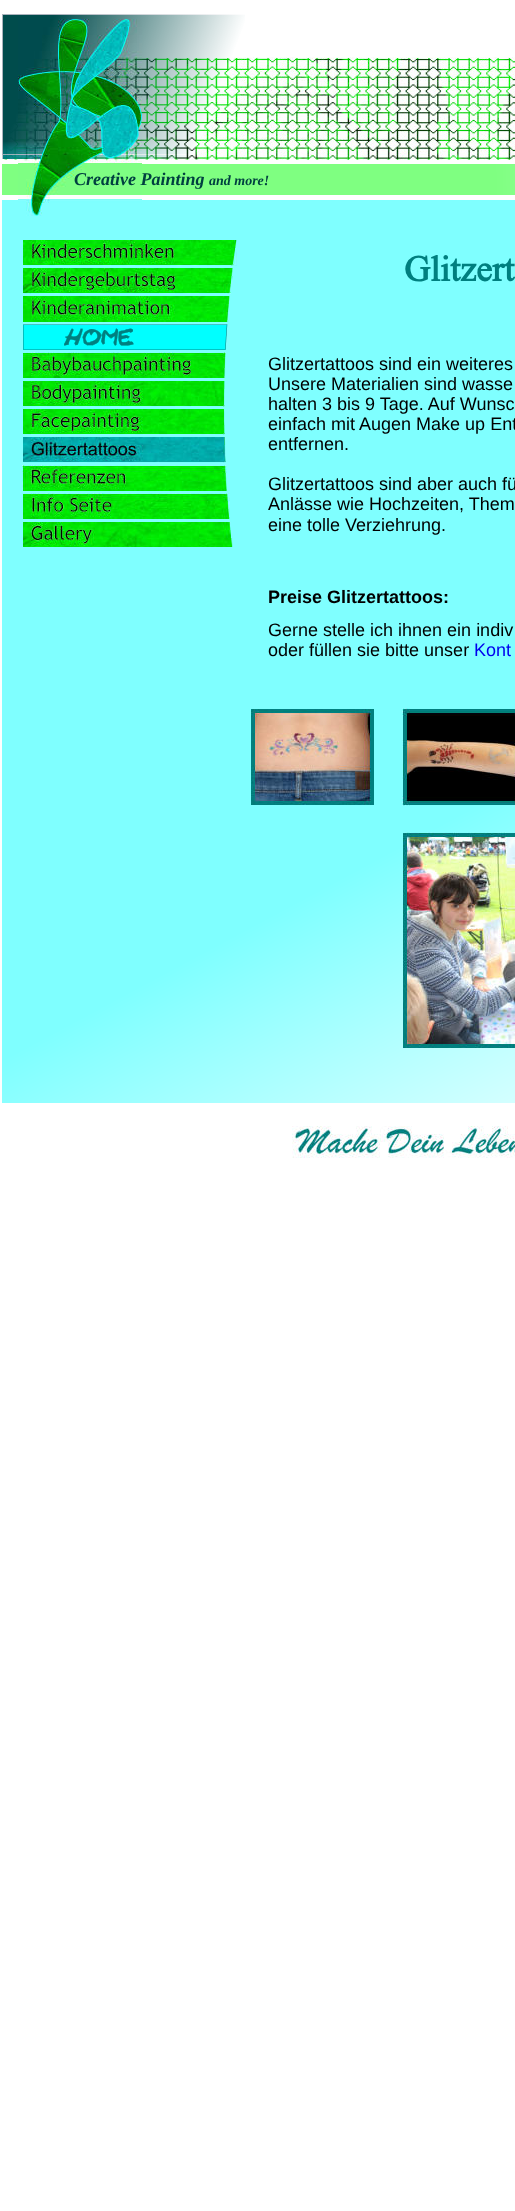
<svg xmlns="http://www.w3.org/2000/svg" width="515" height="2211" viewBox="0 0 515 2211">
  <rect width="100%" height="100%" fill="rgb(255,255,255)"/>
  <image x="3" y="57" width="512" height="103" href="pic4.png"/>
  <image x="2" y="14" width="243" height="145" href="pic1.png"/>
  <image x="2" y="164" width="513" height="31" href="pic5.png"/>
  <image x="2" y="200" width="513" height="903" href="pic6.png"/>
  <image x="18" y="19" width="124" height="197" href="pic2.png"/>
  <image x="65" y="19" width="74" height="140" href="pic3.png"/>
  <text x="74" y="185" font-family="Liberation Serif" font-size="18" font-weight="bold" font-style="italic" fill="rgb(0,64,64)">Creative Painting</text>
  <text x="209" y="185" font-family="Liberation Serif" font-size="14" font-weight="bold" font-style="italic" fill="rgb(0,64,64)">and more!</text>
  <image x="23" y="240" width="214" height="26" href="pic7.png"/>
  <image x="23" y="268" width="210" height="26" href="pic8.png"/>
  <text x="404" y="281" font-family="Times New Roman" font-size="36" font-weight="bold" fill="rgb(0,127,127)">Glitzert</text>
  <image x="23" y="296" width="207" height="26" href="pic9.png"/>
  <image x="23" y="324" width="205" height="26" href="pic10.png"/>
  <image x="23" y="352" width="203" height="26" href="pic11.png"/>
  <g font-family="Liberation Sans" font-size="18" fill="rgb(0,0,0)">
    <text>
      <tspan x="268" y="370">Glitzertattoos sind ein weiteres</tspan>
      <tspan x="268" y="390">Unsere Materialien sind wasse</tspan>
      <tspan x="268" y="410">halten 3 bis 9 Tage. Auf Wunsc</tspan>
      <tspan x="268" y="430">einfach mit Augen Make up Ent</tspan>
      <tspan x="268" y="450">entfernen.</tspan>
    </text>
    <text>
      <tspan x="268" y="490">Glitzertattoos sind aber auch fü</tspan>
      <tspan x="268" y="510">Anlässe wie Hochzeiten, Them</tspan>
      <tspan x="268" y="531">eine tolle Verziehrung.</tspan>
    </text>
  </g>
  <image x="23" y="381" width="202" height="26" href="pic12.png"/>
  <image x="23" y="409" width="202" height="26" href="pic13.png"/>
  <image x="23" y="437" width="203" height="26" href="pic14.png"/>
  <image x="22" y="465" width="205" height="26" href="pic15.png"/>
  <image x="23" y="493" width="207" height="26" href="pic16.png"/>
  <image x="23" y="522" width="210" height="25" href="pic17.png"/>
  <text x="268" y="603" font-family="Liberation Sans" font-size="18" font-weight="bold" fill="rgb(0,0,0)">Preise Glitzertattoos:</text>
  <g font-family="Liberation Sans" font-size="18" fill="rgb(0,0,0)">
    <text>
      <tspan x="268" y="636">Gerne stelle ich ihnen ein indiv</tspan>
      <tspan x="268" y="656">oder füllen sie bitte unser</tspan>
    </text>
  </g>
  <text x="474" y="656" font-family="Liberation Sans" font-size="18" fill="rgb(0,0,238)">Kont</text>
  <image x="251" y="709" width="123" height="96" href="pic18.png"/>
  <image x="402" y="708" width="113" height="98" href="pic19.png"/>
  <image x="403" y="832" width="112" height="216" href="pic20.png"/>
  <image x="292" y="1126" width="223" height="32" href="pic21.png"/>
</svg>
